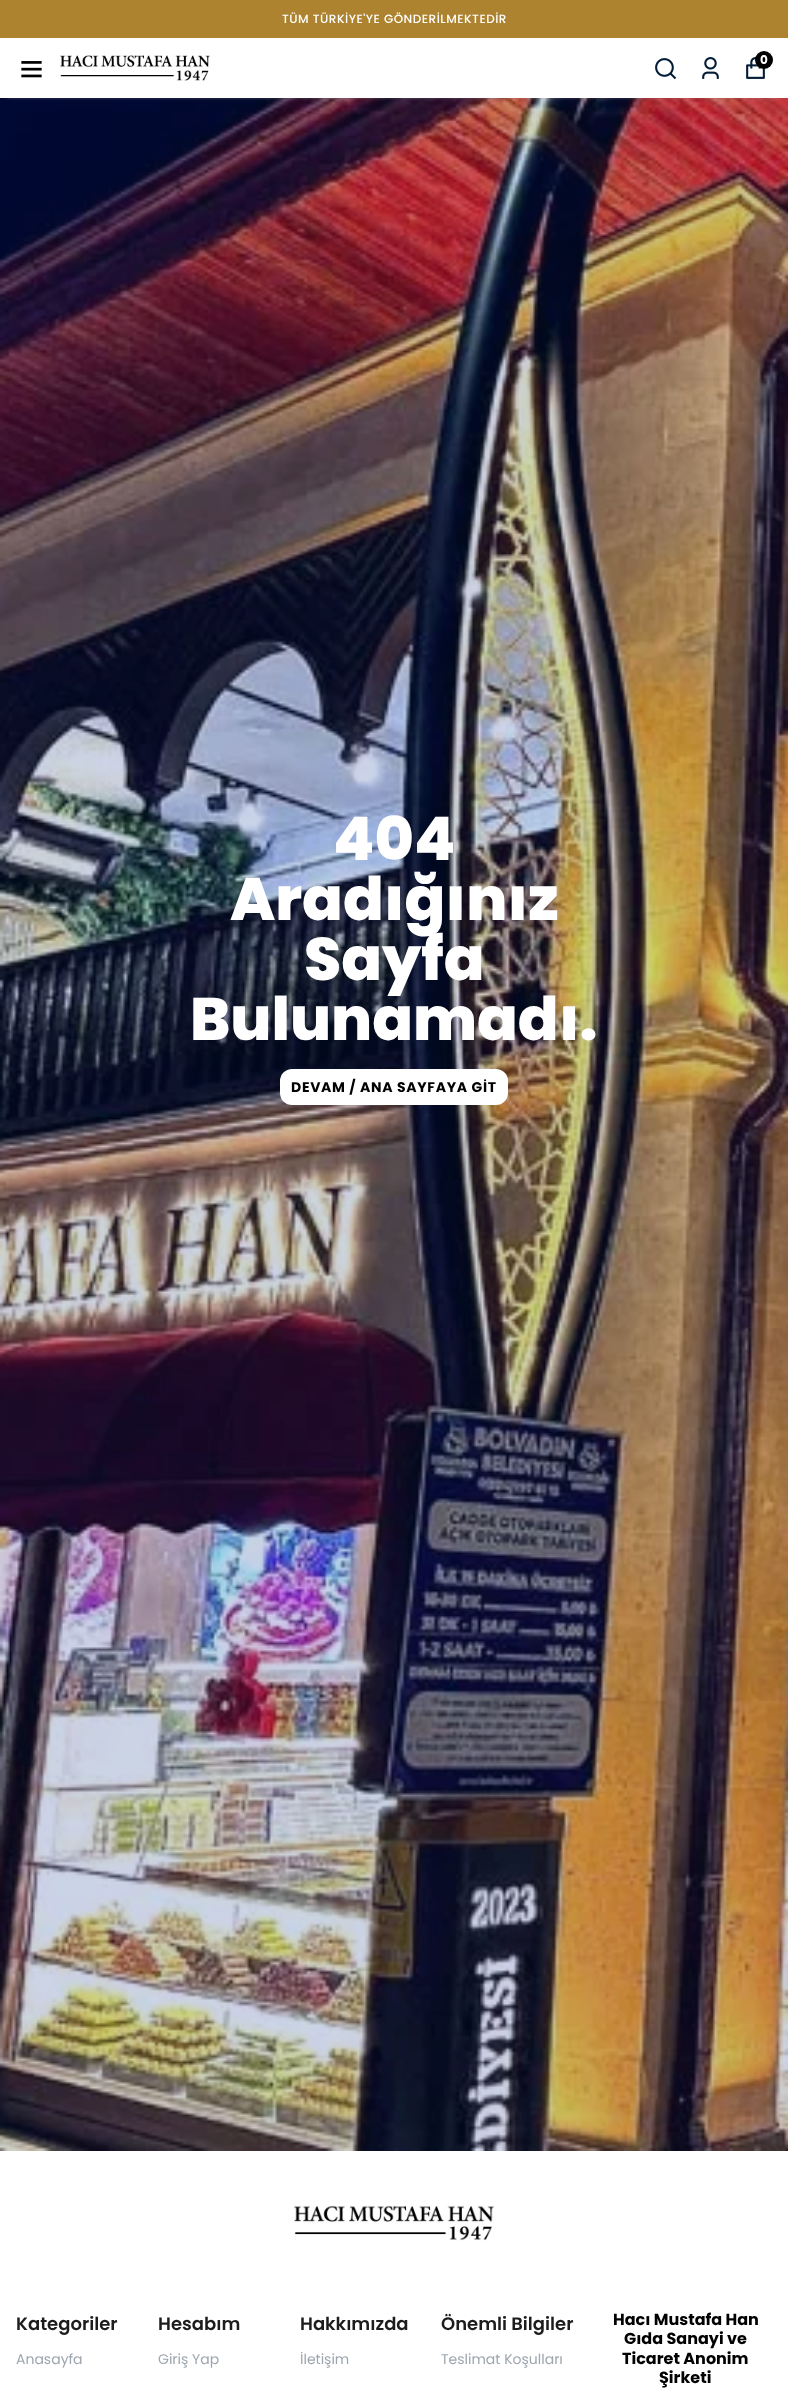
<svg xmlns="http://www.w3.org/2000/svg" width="788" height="2388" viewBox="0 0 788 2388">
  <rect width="100%" height="100%" fill="rgb(255,255,255)"/>
  <rect x="0" y="0" width="788" height="38" fill="rgb(173,131,47)"/>
  <text x="282" y="23" font-family="Poppins" font-size="12" font-weight="500" letter-spacing="0.5" fill="rgb(255,255,255)">TÜM TÜRKİYE'YE GÖNDERİLMEKTEDİR</text>
  <image x="0" y="98" width="788" height="2053" href="pic6.png"/>
  <rect x="7" y="50" width="774" height="46" fill="rgb(152,152,152)" filter="blur(2.5px)"/>
  <rect x="2" y="45" width="784" height="53" fill="rgb(255,255,255)"/>
  <image x="60" y="55" width="150" height="26" href="pic1.png"/>
  <image x="655" y="58" width="22" height="22" href="pic2.png"/>
  <image x="702" y="57" width="17" height="22" href="pic3.png"/>
  <image x="746" y="57" width="19" height="22" href="pic4.png"/>
  <circle cx="764" cy="60" r="9" fill="rgb(0,0,0)"/>
  <text x="760" y="64" font-family="Poppins" font-size="12" font-weight="bold" fill="rgb(255,255,255)">0</text>
  <image x="21" y="61" width="21" height="17" href="pic5.png"/>
  <g font-family="Poppins" font-size="60" font-weight="800" fill="rgb(255,255,255)">
    <text x="333" y="860">404</text>
    <text x="230" y="920">Aradığınız</text>
    <text x="304" y="980">Sayfa</text>
    <text x="190" y="1040">Bulunamadı.</text>
  </g>
  <rect x="280" y="1069" width="228" height="36" rx="12" fill="rgb(255,255,255)"/>
  <text x="291" y="1092" font-family="Poppins" font-size="14" font-weight="bold" letter-spacing="0.7" fill="rgb(0,0,0)">DEVAM / ANA SAYFAYA GİT</text>
  <image x="294" y="2205" width="200" height="36" href="pic7.png"/>
  <text x="16" y="2330" font-family="Poppins" font-size="18" font-weight="600" fill="rgb(29,29,29)">Kategoriler</text>
  <text x="16" y="2364" font-family="Poppins" font-size="14" fill="rgb(157,165,175)">Anasayfa</text>
  <text x="158" y="2330" font-family="Poppins" font-size="18" font-weight="600" fill="rgb(29,29,29)">Hesabım</text>
  <text x="158" y="2364" font-family="Poppins" font-size="14" fill="rgb(157,165,175)">Giriş Yap</text>
  <text x="300" y="2330" font-family="Poppins" font-size="18" font-weight="600" fill="rgb(29,29,29)">Hakkımızda</text>
  <text x="300" y="2364" font-family="Poppins" font-size="14" fill="rgb(157,165,175)">İletişim</text>
  <text x="441" y="2330" font-family="Poppins" font-size="18" font-weight="600" fill="rgb(29,29,29)">Önemli Bilgiler</text>
  <text x="441" y="2364" font-family="Poppins" font-size="14" fill="rgb(157,165,175)">Teslimat Koşulları</text>
  <g font-family="Poppins" font-size="16" font-weight="bold" fill="rgb(0,0,0)">
    <text x="613" y="2325">Hacı Mustafa Han</text>
    <text x="624" y="2344">Gıda Sanayi ve</text>
    <text x="622" y="2364">Ticaret Anonim</text>
    <text x="659" y="2383">Şirketi</text>
  </g>
</svg>
